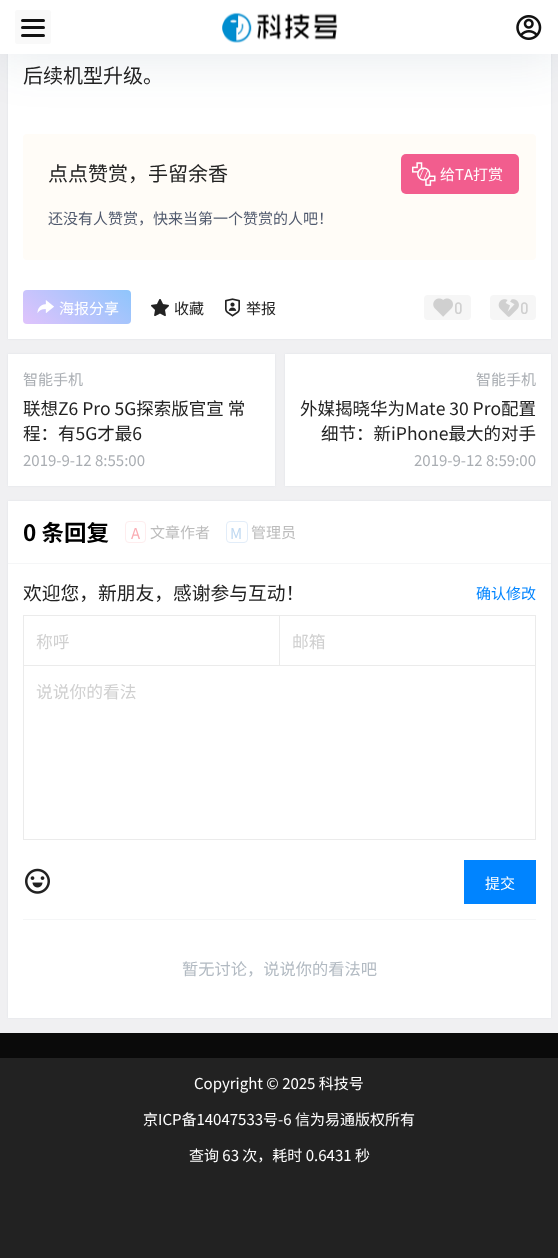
<svg xmlns="http://www.w3.org/2000/svg" width="558" height="1258" viewBox="0 0 558 1258">
  <style>*{font-kerning:none!important;font-variant-ligatures:none!important}</style>
  <defs>
    <linearGradient id="g1" gradientUnits="userSpaceOnUse" x1="46" y1="344" x2="108" y2="270"><stop offset="0" stop-color="rgb(224,195,252)"/><stop offset="1" stop-color="rgb(142,197,252)"/></linearGradient>
  </defs>
  <rect width="100%" height="100%" fill="rgb(240,240,242)"/>
  <rect x="8" y="-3" width="543" height="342" fill="rgba(98,124,153,0.1)" filter="blur(1px)"/>
  <rect x="8" y="54" width="543" height="285" fill="rgb(255,255,255)"/>
  <rect x="23" y="134" width="513" height="126" rx="4" fill="rgb(255,252,247)"/>
  <rect x="0" y="-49" width="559" height="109" fill="rgba(17,58,93,0.1)" filter="blur(25px)"/>
  <rect x="0" y="0" width="558" height="54" fill="rgb(255,255,255)"/>
  <rect x="15" y="10" width="36" height="34" rx="2.5" fill="rgb(249,249,249)"/>
  <rect x="21" y="19" width="24" height="3" rx="1.5" fill="rgb(18,18,18)"/>
  <rect x="21" y="26" width="24" height="3" rx="1.5" fill="rgb(18,18,18)"/>
  <rect x="21" y="34" width="24" height="3" rx="1.5" fill="rgb(18,18,18)"/>
  <image x="222" y="12" width="116" height="31" href="pic1.png"/>
  <image x="516" y="15" width="26" height="25" href="pic2.png"/>
  <g font-family="Noto Sans CJK SC" font-size="20" fill="rgb(34,34,34)">
    <text x="23" y="83">后续机型升级。</text>
    <text x="48" y="181">点点赞赏，手留余香</text>
  </g>
  <rect x="401" y="154" width="118" height="40" rx="5" fill="rgb(242,93,142)"/>
  <image x="412" y="162" width="24" height="24" href="pic3.png"/>
  <text x="440" y="180" font-family="Noto Sans CJK SC" font-size="15" fill="rgb(255,255,255)">给TA打赏</text>
  <text x="48" y="224" font-family="Noto Sans CJK SC" font-size="15" fill="rgb(81,90,110)">还没有人赞赏，快来当第一个赞赏的人吧！</text>
  <rect x="23" y="290" width="108" height="34" rx="4" fill="url(#g1)"/>
  <image x="37" y="300" width="17" height="13" href="pic4.png"/>
  <text x="59" y="314" font-family="Noto Sans CJK SC" font-size="15" fill="rgb(255,255,255)">海报分享</text>
  <image x="151" y="299" width="18" height="18" href="pic5.png"/>
  <text x="174" y="314" font-family="Noto Sans CJK SC" font-size="15" fill="rgb(34,34,34)">收藏</text>
  <image x="225" y="298" width="15" height="19" href="pic6.png"/>
  <text x="246" y="314" font-family="Noto Sans CJK SC" font-size="15" fill="rgb(34,34,34)">举报</text>
  <rect x="424" y="295" width="47" height="25" rx="4" fill="rgb(246,246,246)"/>
  <image x="433" y="298" width="20" height="19" href="pic7.png"/>
  <text x="454" y="314" font-family="DIN" font-size="16.25" font-weight="500" fill="rgb(208,208,208)">0</text>
  <rect x="490" y="295" width="46" height="25" rx="4" fill="rgb(246,246,246)"/>
  <image x="498" y="299" width="21" height="18" href="pic8.png"/>
  <text x="520" y="314" font-family="DIN" font-size="16.25" font-weight="500" fill="rgb(208,208,208)">0</text>
  <rect x="8" y="354" width="267" height="132" fill="rgba(98,124,153,0.1)" filter="blur(1px)"/>
  <rect x="8" y="354" width="267" height="132" fill="rgb(255,255,255)"/>
  <text x="23" y="385" font-family="Noto Sans CJK SC" font-size="15" fill="rgb(170,174,179)">智能手机</text>
  <g font-family="Noto Sans CJK SC" font-size="17.5" fill="rgb(34,34,34)">
    <text>
      <tspan x="23" y="415">联想Z6 Pro 5G探索版官宣 常</tspan>
      <tspan x="23" y="440">程：有5G才最6</tspan>
    </text>
  </g>
  <text x="23" y="466" font-family="Noto Sans CJK SC" font-size="15" fill="rgb(170,174,179)">2019-9-12 8:55:00</text>
  <rect x="285" y="354" width="266" height="132" fill="rgba(98,124,153,0.1)" filter="blur(1px)"/>
  <rect x="285" y="354" width="266" height="132" fill="rgb(255,255,255)"/>
  <text x="476" y="385" font-family="Noto Sans CJK SC" font-size="15" fill="rgb(170,174,179)">智能手机</text>
  <g font-family="Noto Sans CJK SC" font-size="17.5" fill="rgb(34,34,34)">
    <text x="300" y="415">外媒揭晓华为Mate 30 Pro配置</text>
    <text x="321" y="440">细节：新iPhone最大的对手</text>
  </g>
  <text x="414" y="466" font-family="Noto Sans CJK SC" font-size="15" fill="rgb(170,174,179)">2019-9-12 8:59:00</text>
  <rect x="8" y="501" width="543" height="517" fill="rgba(98,124,153,0.1)" filter="blur(1px)"/>
  <rect x="8" y="501" width="543" height="517" fill="rgb(255,255,255)"/>
  <rect x="8" y="563" width="543" height="1" fill="rgb(245,246,247)"/>
  <text x="23" y="541" font-family="Noto Sans CJK SC" font-size="22.5" font-weight="bold" fill="rgb(0,0,0)">0 条回复</text>
  <rect x="125.5" y="521.5" width="20" height="21" rx="3.5" fill="none" stroke="rgb(254,237,238)"/>
  <text x="131" y="539" font-family="Noto Sans CJK SC" font-size="15" fill="rgb(250,173,180)">A</text>
  <text x="150" y="538" font-family="Noto Sans CJK SC" font-size="15" fill="rgb(188,188,188)">文章作者</text>
  <rect x="226.5" y="521.5" width="21" height="21" rx="3.5" fill="none" stroke="rgb(226,237,249)"/>
  <text x="230" y="539" font-family="Noto Sans CJK SC" font-size="15" fill="rgb(192,217,241)">M</text>
  <text x="251" y="538" font-family="Noto Sans CJK SC" font-size="15" fill="rgb(188,188,188)">管理员</text>
  <text x="23" y="600" font-family="Noto Sans CJK SC" font-size="18.75" fill="rgb(34,34,34)">欢迎您，新朋友，感谢参与互动！</text>
  <text x="476" y="599" font-family="Noto Sans CJK SC" font-size="15" fill="rgb(0,132,255)">确认修改</text>
  <rect x="23.5" y="615.5" width="256" height="50" fill="none" stroke="rgb(235,235,235)"/>
  <text x="36" y="648" font-family="Noto Sans CJK SC" font-size="16.75" fill="rgb(208,208,208)">称呼</text>
  <rect x="280" y="615" width="256" height="1" fill="rgb(235,235,235)"/>
  <rect x="535" y="615" width="1" height="51" fill="rgb(235,235,235)"/>
  <text x="292" y="648" font-family="Noto Sans CJK SC" font-size="16.75" fill="rgb(208,208,208)">邮箱</text>
  <rect x="23.5" y="665.5" width="512" height="174" fill="none" stroke="rgb(235,235,235)"/>
  <text x="36" y="698" font-family="Noto Sans CJK SC" font-size="16.75" fill="rgb(208,208,208)">说说你的看法</text>
  <image x="25" y="868" width="25" height="26" href="pic9.png"/>
  <rect x="464" y="860" width="72" height="44" fill="rgb(0,132,255)"/>
  <text x="485" y="889" font-family="Noto Sans CJK SC" font-size="15" fill="rgb(255,255,255)">提交</text>
  <rect x="23" y="919" width="513" height="1" fill="rgb(245,246,247)"/>
  <text x="182" y="975" font-family="Noto Sans CJK SC" font-size="16.25" fill="rgb(178,186,194)">暂无讨论，说说你的看法吧</text>
  <rect x="0" y="1033" width="558" height="25" fill="rgb(10,10,10)"/>
  <rect x="0" y="1058" width="558" height="200" fill="rgb(34,34,34)"/>
  <g font-family="Noto Sans CJK SC" font-size="15" fill="rgb(255,255,255)">
    <text x="194" y="1089">Copyright © 2025 科技号</text>
    <text x="143" y="1125">京ICP备14047533号-6 信为易通版权所有</text>
    <text x="189" y="1161">查询 63 次，耗时 0.6431 秒</text>
  </g>
</svg>
